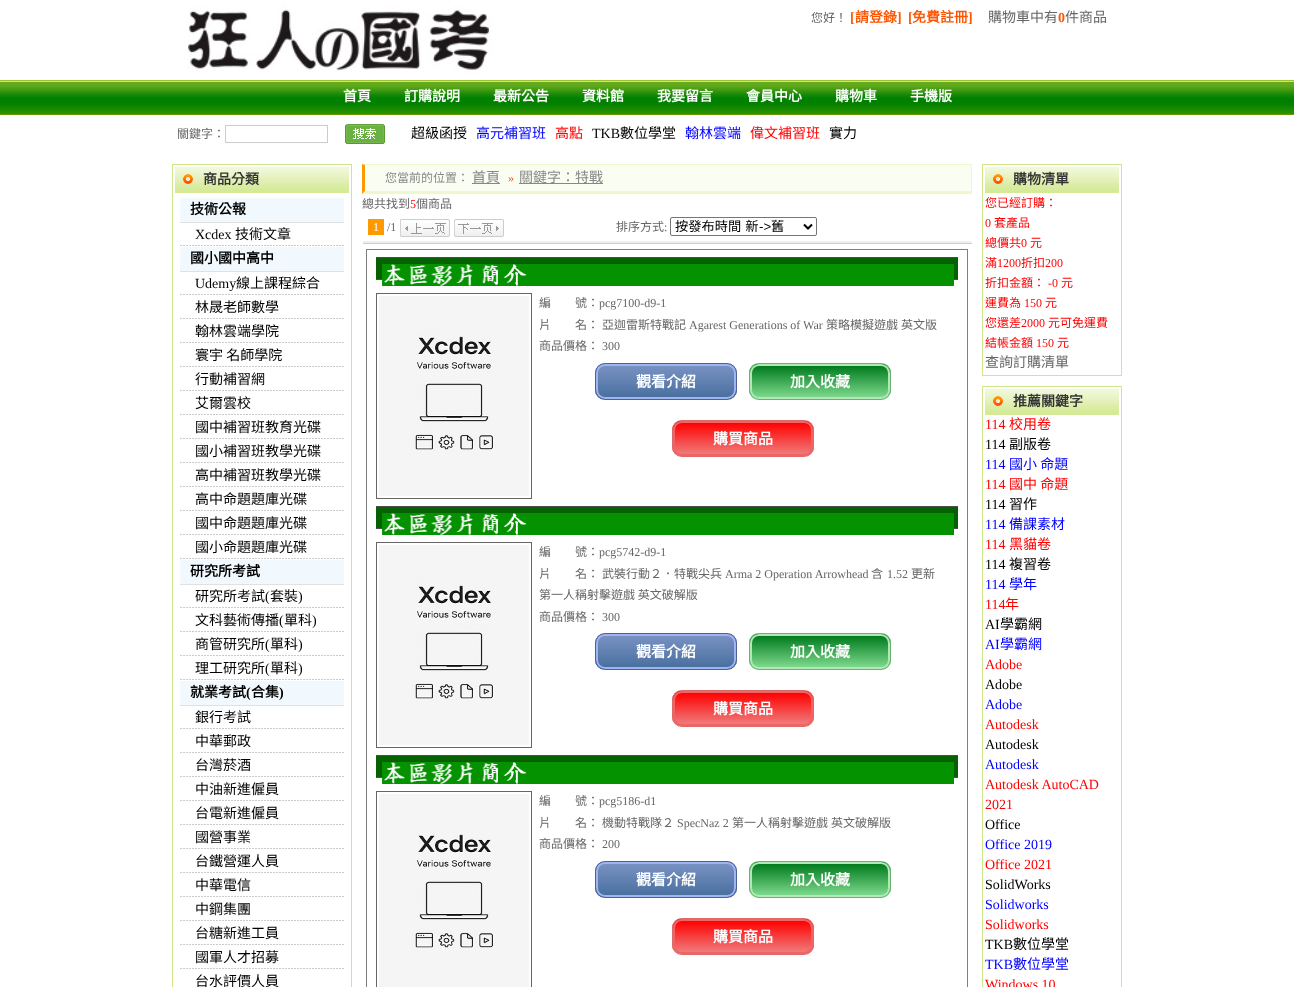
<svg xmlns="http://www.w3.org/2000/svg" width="1294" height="987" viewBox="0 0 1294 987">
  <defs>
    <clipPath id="clip1"><rect x="595" y="363" width="142" height="37" rx="10"/></clipPath>
    <linearGradient id="g1" gradientUnits="userSpaceOnUse" x1="666" y1="364" x2="666" y2="399"><stop offset="0.05" stop-color="rgb(120,146,194)"/><stop offset="1" stop-color="rgb(71,110,158)"/></linearGradient>
    <clipPath id="clip2"><rect x="749" y="363" width="142" height="37" rx="10"/></clipPath>
    <linearGradient id="g2" gradientUnits="userSpaceOnUse" x1="820" y1="364" x2="820" y2="399"><stop offset="0.05" stop-color="rgb(0,122,29)"/><stop offset="1" stop-color="rgb(132,222,147)"/></linearGradient>
    <clipPath id="clip3"><rect x="672" y="420" width="142" height="37" rx="10"/></clipPath>
    <linearGradient id="g3" gradientUnits="userSpaceOnUse" x1="743" y1="421" x2="743" y2="456"><stop offset="0.05" stop-color="rgb(255,0,0)"/><stop offset="1" stop-color="rgb(239,130,130)"/></linearGradient>
    <clipPath id="clip4"><rect x="595" y="633" width="142" height="37" rx="10"/></clipPath>
    <linearGradient id="g4" gradientUnits="userSpaceOnUse" x1="666" y1="634" x2="666" y2="669"><stop offset="0.05" stop-color="rgb(120,146,194)"/><stop offset="1" stop-color="rgb(71,110,158)"/></linearGradient>
    <clipPath id="clip5"><rect x="749" y="633" width="142" height="37" rx="10"/></clipPath>
    <linearGradient id="g5" gradientUnits="userSpaceOnUse" x1="820" y1="634" x2="820" y2="669"><stop offset="0.05" stop-color="rgb(0,122,29)"/><stop offset="1" stop-color="rgb(132,222,147)"/></linearGradient>
    <clipPath id="clip6"><rect x="672" y="690" width="142" height="37" rx="10"/></clipPath>
    <linearGradient id="g6" gradientUnits="userSpaceOnUse" x1="743" y1="691" x2="743" y2="726"><stop offset="0.05" stop-color="rgb(255,0,0)"/><stop offset="1" stop-color="rgb(239,130,130)"/></linearGradient>
    <clipPath id="clip7"><rect x="595" y="861" width="142" height="37" rx="10"/></clipPath>
    <linearGradient id="g7" gradientUnits="userSpaceOnUse" x1="666" y1="862" x2="666" y2="897"><stop offset="0.05" stop-color="rgb(120,146,194)"/><stop offset="1" stop-color="rgb(71,110,158)"/></linearGradient>
    <clipPath id="clip8"><rect x="749" y="861" width="142" height="37" rx="10"/></clipPath>
    <linearGradient id="g8" gradientUnits="userSpaceOnUse" x1="820" y1="862" x2="820" y2="897"><stop offset="0.05" stop-color="rgb(0,122,29)"/><stop offset="1" stop-color="rgb(132,222,147)"/></linearGradient>
    <clipPath id="clip9"><rect x="672" y="918" width="142" height="37" rx="10"/></clipPath>
    <linearGradient id="g9" gradientUnits="userSpaceOnUse" x1="743" y1="919" x2="743" y2="954"><stop offset="0.05" stop-color="rgb(255,0,0)"/><stop offset="1" stop-color="rgb(239,130,130)"/></linearGradient>
  </defs>
  <rect width="100%" height="100%" fill="rgb(255,255,255)"/>
  <image x="188" y="5" width="304" height="70" href="pic1.png"/>
  <text x="811" y="22" font-family="Noto Sans CJK TC" font-size="12" fill="rgb(102,102,102)">您好！</text>
  <text x="850" y="22" font-family="Liberation Serif" font-size="14" font-weight="bold" fill="rgb(255,85,0)">[</text>
  <text x="855" y="22" font-family="Noto Sans CJK TC" font-size="14" font-weight="bold" fill="rgb(255,85,0)">請登錄</text>
  <g font-family="Liberation Serif" font-size="14" font-weight="bold" fill="rgb(255,85,0)">
    <text x="897" y="22">]</text>
    <text x="908" y="22">[</text>
  </g>
  <text x="912" y="22" font-family="Noto Sans CJK TC" font-size="14" font-weight="bold" fill="rgb(255,85,0)">免費註冊</text>
  <text x="968" y="22" font-family="Liberation Serif" font-size="14" font-weight="bold" fill="rgb(255,85,0)">]</text>
  <text x="988" y="22" font-family="Noto Sans CJK TC" font-size="14" fill="rgb(102,102,102)">購物車中有</text>
  <text x="1058" y="22" font-family="Liberation Serif" font-size="14" font-weight="bold" fill="rgb(255,85,0)">0</text>
  <text x="1065" y="22" font-family="Noto Sans CJK TC" font-size="14" fill="rgb(102,102,102)">件商品</text>
  <image x="0" y="80" width="1294" height="35" href="pic2.png"/>
  <g font-family="Noto Sans CJK TC" font-size="14" font-weight="bold" fill="rgb(255,255,255)">
    <text x="343" y="101">首頁</text>
    <text x="404" y="101">訂購說明</text>
    <text x="493" y="101">最新公告</text>
    <text x="582" y="101">資料館</text>
    <text x="657" y="101">我要留言</text>
    <text x="746" y="101">會員中心</text>
    <text x="835" y="101">購物車</text>
    <text x="910" y="101">手機版</text>
  </g>
  <text x="177" y="138" font-family="Noto Sans CJK TC" font-size="12" fill="rgb(102,102,102)">關鍵字：</text>
  <rect x="225.5" y="125.5" width="102" height="17" fill="none" stroke="rgb(204,204,204)"/>
  <image x="345" y="124" width="40" height="20" href="pic3.png"/>
  <text x="411" y="138" font-family="Noto Sans CJK TC" font-size="14" fill="rgb(0,0,0)">超級函授</text>
  <text x="476" y="138" font-family="Noto Sans CJK TC" font-size="14" fill="rgb(0,0,255)">高元補習班</text>
  <text x="555" y="138" font-family="Noto Sans CJK TC" font-size="14" fill="rgb(255,0,0)">高點</text>
  <text x="592" y="138" font-family="Liberation Serif" font-size="14" fill="rgb(0,0,0)">TKB</text>
  <text x="620" y="138" font-family="Noto Sans CJK TC" font-size="14" fill="rgb(0,0,0)">數位學堂</text>
  <text x="685" y="138" font-family="Noto Sans CJK TC" font-size="14" fill="rgb(0,0,255)">翰林雲端</text>
  <text x="750" y="138" font-family="Noto Sans CJK TC" font-size="14" fill="rgb(255,0,0)">偉文補習班</text>
  <text x="829" y="138" font-family="Noto Sans CJK TC" font-size="14" fill="rgb(0,0,0)">實力</text>
  <rect x="172.5" y="164.5" width="179" height="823" fill="none" stroke="rgb(207,231,137)"/>
  <image x="175" y="167" width="174" height="26" href="pic4.png"/>
  <image x="183" y="174" width="10" height="10" href="pic5.png"/>
  <text x="203" y="184" font-family="Noto Sans CJK TC" font-size="14" font-weight="bold" fill="rgb(51,51,51)">商品分類</text>
  <rect x="180" y="198" width="164" height="24" fill="rgb(241,249,255)"/>
  <rect x="180" y="222" width="164" height="1" fill="rgb(225,225,225)"/>
  <text x="190" y="214" font-family="Noto Sans CJK TC" font-size="14" font-weight="bold" fill="rgb(0,0,0)">技術公報</text>
  <image x="180" y="245" width="164" height="1" href="pic6.png"/>
  <text x="195" y="239" font-family="Liberation Serif" font-size="14" fill="rgb(0,0,0)">Xcdex</text>
  <text x="235" y="239" font-family="Noto Sans CJK TC" font-size="14" fill="rgb(0,0,0)">技術文章</text>
  <rect x="180" y="247" width="164" height="24" fill="rgb(241,249,255)"/>
  <rect x="180" y="271" width="164" height="1" fill="rgb(225,225,225)"/>
  <text x="190" y="263" font-family="Noto Sans CJK TC" font-size="14" font-weight="bold" fill="rgb(0,0,0)">國小國中高中</text>
  <image x="180" y="294" width="164" height="1" href="pic6.png"/>
  <text x="195" y="288" font-family="Liberation Serif" font-size="14" fill="rgb(0,0,0)">Udemy</text>
  <text x="236" y="288" font-family="Noto Sans CJK TC" font-size="14" fill="rgb(0,0,0)">線上課程綜合</text>
  <image x="180" y="318" width="164" height="1" href="pic6.png"/>
  <text x="195" y="312" font-family="Noto Sans CJK TC" font-size="14" fill="rgb(0,0,0)">林晟老師數學</text>
  <image x="180" y="342" width="164" height="1" href="pic6.png"/>
  <text x="195" y="336" font-family="Noto Sans CJK TC" font-size="14" fill="rgb(0,0,0)">翰林雲端學院</text>
  <image x="180" y="366" width="164" height="1" href="pic6.png"/>
  <text x="195" y="360" font-family="Noto Sans CJK TC" font-size="14" fill="rgb(0,0,0)">寰宇 名師學院</text>
  <image x="180" y="390" width="164" height="1" href="pic6.png"/>
  <text x="195" y="384" font-family="Noto Sans CJK TC" font-size="14" fill="rgb(0,0,0)">行動補習網</text>
  <image x="180" y="414" width="164" height="1" href="pic6.png"/>
  <text x="195" y="408" font-family="Noto Sans CJK TC" font-size="14" fill="rgb(0,0,0)">艾爾雲校</text>
  <image x="180" y="438" width="164" height="1" href="pic6.png"/>
  <text x="195" y="432" font-family="Noto Sans CJK TC" font-size="14" fill="rgb(0,0,0)">國中補習班教育光碟</text>
  <image x="180" y="462" width="164" height="1" href="pic6.png"/>
  <text x="195" y="456" font-family="Noto Sans CJK TC" font-size="14" fill="rgb(0,0,0)">國小補習班教學光碟</text>
  <image x="180" y="486" width="164" height="1" href="pic6.png"/>
  <text x="195" y="480" font-family="Noto Sans CJK TC" font-size="14" fill="rgb(0,0,0)">高中補習班教學光碟</text>
  <image x="180" y="510" width="164" height="1" href="pic6.png"/>
  <text x="195" y="504" font-family="Noto Sans CJK TC" font-size="14" fill="rgb(0,0,0)">高中命題題庫光碟</text>
  <image x="180" y="534" width="164" height="1" href="pic6.png"/>
  <text x="195" y="528" font-family="Noto Sans CJK TC" font-size="14" fill="rgb(0,0,0)">國中命題題庫光碟</text>
  <image x="180" y="558" width="164" height="1" href="pic6.png"/>
  <text x="195" y="552" font-family="Noto Sans CJK TC" font-size="14" fill="rgb(0,0,0)">國小命題題庫光碟</text>
  <rect x="180" y="560" width="164" height="24" fill="rgb(241,249,255)"/>
  <rect x="180" y="584" width="164" height="1" fill="rgb(225,225,225)"/>
  <text x="190" y="576" font-family="Noto Sans CJK TC" font-size="14" font-weight="bold" fill="rgb(0,0,0)">研究所考試</text>
  <image x="180" y="607" width="164" height="1" href="pic6.png"/>
  <text x="195" y="601" font-family="Noto Sans CJK TC" font-size="14" fill="rgb(0,0,0)">研究所考試</text>
  <text x="265" y="601" font-family="Liberation Serif" font-size="14" fill="rgb(0,0,0)">(</text>
  <text x="270" y="601" font-family="Noto Sans CJK TC" font-size="14" fill="rgb(0,0,0)">套裝</text>
  <text x="298" y="601" font-family="Liberation Serif" font-size="14" fill="rgb(0,0,0)">)</text>
  <image x="180" y="631" width="164" height="1" href="pic6.png"/>
  <text x="195" y="625" font-family="Noto Sans CJK TC" font-size="14" fill="rgb(0,0,0)">文科藝術傳播</text>
  <text x="279" y="625" font-family="Liberation Serif" font-size="14" fill="rgb(0,0,0)">(</text>
  <text x="284" y="625" font-family="Noto Sans CJK TC" font-size="14" fill="rgb(0,0,0)">單科</text>
  <text x="312" y="625" font-family="Liberation Serif" font-size="14" fill="rgb(0,0,0)">)</text>
  <image x="180" y="655" width="164" height="1" href="pic6.png"/>
  <text x="195" y="649" font-family="Noto Sans CJK TC" font-size="14" fill="rgb(0,0,0)">商管研究所</text>
  <text x="265" y="649" font-family="Liberation Serif" font-size="14" fill="rgb(0,0,0)">(</text>
  <text x="270" y="649" font-family="Noto Sans CJK TC" font-size="14" fill="rgb(0,0,0)">單科</text>
  <text x="298" y="649" font-family="Liberation Serif" font-size="14" fill="rgb(0,0,0)">)</text>
  <image x="180" y="679" width="164" height="1" href="pic6.png"/>
  <text x="195" y="673" font-family="Noto Sans CJK TC" font-size="14" fill="rgb(0,0,0)">理工研究所</text>
  <text x="265" y="673" font-family="Liberation Serif" font-size="14" fill="rgb(0,0,0)">(</text>
  <text x="270" y="673" font-family="Noto Sans CJK TC" font-size="14" fill="rgb(0,0,0)">單科</text>
  <text x="298" y="673" font-family="Liberation Serif" font-size="14" fill="rgb(0,0,0)">)</text>
  <rect x="180" y="681" width="164" height="24" fill="rgb(241,249,255)"/>
  <rect x="180" y="705" width="164" height="1" fill="rgb(225,225,225)"/>
  <text x="190" y="697" font-family="Noto Sans CJK TC" font-size="14" font-weight="bold" fill="rgb(0,0,0)">就業考試</text>
  <text x="246" y="697" font-family="Liberation Serif" font-size="14" font-weight="bold" fill="rgb(0,0,0)">(</text>
  <text x="251" y="697" font-family="Noto Sans CJK TC" font-size="14" font-weight="bold" fill="rgb(0,0,0)">合集</text>
  <text x="279" y="697" font-family="Liberation Serif" font-size="14" font-weight="bold" fill="rgb(0,0,0)">)</text>
  <image x="180" y="728" width="164" height="1" href="pic6.png"/>
  <text x="195" y="722" font-family="Noto Sans CJK TC" font-size="14" fill="rgb(0,0,0)">銀行考試</text>
  <image x="180" y="752" width="164" height="1" href="pic6.png"/>
  <text x="195" y="746" font-family="Noto Sans CJK TC" font-size="14" fill="rgb(0,0,0)">中華郵政</text>
  <image x="180" y="776" width="164" height="1" href="pic6.png"/>
  <text x="195" y="770" font-family="Noto Sans CJK TC" font-size="14" fill="rgb(0,0,0)">台灣菸酒</text>
  <image x="180" y="800" width="164" height="1" href="pic6.png"/>
  <text x="195" y="794" font-family="Noto Sans CJK TC" font-size="14" fill="rgb(0,0,0)">中油新進僱員</text>
  <image x="180" y="824" width="164" height="1" href="pic6.png"/>
  <text x="195" y="818" font-family="Noto Sans CJK TC" font-size="14" fill="rgb(0,0,0)">台電新進僱員</text>
  <image x="180" y="848" width="164" height="1" href="pic6.png"/>
  <text x="195" y="842" font-family="Noto Sans CJK TC" font-size="14" fill="rgb(0,0,0)">國營事業</text>
  <image x="180" y="872" width="164" height="1" href="pic6.png"/>
  <text x="195" y="866" font-family="Noto Sans CJK TC" font-size="14" fill="rgb(0,0,0)">台鐵營運人員</text>
  <image x="180" y="896" width="164" height="1" href="pic6.png"/>
  <text x="195" y="890" font-family="Noto Sans CJK TC" font-size="14" fill="rgb(0,0,0)">中華電信</text>
  <image x="180" y="920" width="164" height="1" href="pic6.png"/>
  <text x="195" y="914" font-family="Noto Sans CJK TC" font-size="14" fill="rgb(0,0,0)">中鋼集團</text>
  <image x="180" y="944" width="164" height="1" href="pic6.png"/>
  <text x="195" y="938" font-family="Noto Sans CJK TC" font-size="14" fill="rgb(0,0,0)">台糖新進工員</text>
  <image x="180" y="968" width="164" height="1" href="pic6.png"/>
  <g font-family="Noto Sans CJK TC" font-size="14" fill="rgb(0,0,0)">
    <text>
      <tspan x="195" y="962">國軍人才招募</tspan>
      <tspan x="195" y="986">台水評價人員</tspan>
    </text>
  </g>
  <rect x="365" y="165" width="606" height="26" fill="rgb(250,253,242)"/>
  <path d="M362 164H972L971 165H365Z" fill="rgb(237,249,203)"/>
  <rect x="971" y="164" width="1" height="30" fill="rgb(237,249,203)"/>
  <path d="M972 194H362L365 191H971Z" fill="rgb(237,249,203)"/>
  <path d="M362 194V164L365 165V191Z" fill="rgb(255,153,0)"/>
  <text x="385" y="182" font-family="Noto Sans CJK TC" font-size="12" fill="rgb(136,136,136)">您當前的位置：</text>
  <rect x="472" y="183" width="28" height="1" fill="rgb(136,136,136)"/>
  <text x="472" y="182" font-family="Noto Sans CJK TC" font-size="14" fill="rgb(136,136,136)">首頁</text>
  <text x="508" y="182" font-family="Liberation Serif" font-size="12" fill="rgb(255,85,0)">»</text>
  <rect x="519" y="183" width="84" height="1" fill="rgb(136,136,136)"/>
  <text x="519" y="182" font-family="Noto Sans CJK TC" font-size="14" fill="rgb(136,136,136)">關鍵字：特戰</text>
  <text x="362" y="208" font-family="Noto Sans CJK TC" font-size="12" fill="rgb(102,102,102)">總共找到</text>
  <text x="410" y="208" font-family="Liberation Serif" font-size="12" fill="rgb(255,0,0)">5</text>
  <text x="416" y="208" font-family="Noto Sans CJK TC" font-size="12" fill="rgb(102,102,102)">個商品</text>
  <rect x="362" y="243" width="610" height="1" fill="rgb(204,204,204)"/>
  <rect x="362" y="243" width="1" height="1" fill="rgb(255,255,255)"/>
  <rect x="363" y="241" width="608" height="2" fill="rgb(239,239,239)"/>
  <rect x="368" y="219" width="16" height="16" fill="rgb(255,153,0)"/>
  <text x="373" y="231" font-family="Liberation Serif" font-size="12" fill="rgb(255,255,255)">1</text>
  <text x="387" y="231" font-family="Liberation Serif" font-size="12" fill="rgb(102,102,102)">/1</text>
  <image x="400" y="219" width="50" height="18" href="pic7.png"/>
  <image x="454" y="219" width="50" height="18" href="pic8.png"/>
  <text x="616" y="231" font-family="Noto Sans CJK TC" font-size="12" fill="rgb(102,102,102)">排序方式</text>
  <text x="664" y="231" font-family="Liberation Serif" font-size="12" fill="rgb(102,102,102)">:</text>
  <rect x="670.5" y="217.5" width="146" height="18" rx="1.5" fill="none" stroke="rgb(118,118,118)"/>
  <path d="M804 224.5L808 228.5L812 224.5" fill="none" stroke="rgb(0,0,0)" stroke-width="2"/>
  <text x="675" y="231" word-spacing="1" font-family="Noto Sans CJK TC" font-size="13.25" fill="rgb(0,0,0)">按發布時間 新</text>
  <text x="759" y="231" font-family="Liberation Sans" font-size="13.25" fill="rgb(0,0,0)">-&gt;</text>
  <text x="771" y="231" font-family="Noto Sans CJK TC" font-size="13.25" fill="rgb(0,0,0)">舊</text>
  <rect x="366.5" y="249.5" width="601" height="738" fill="none" stroke="rgb(128,128,128)"/>
  <image x="376" y="257" width="582" height="29" href="pic9.png"/>
  <rect x="376.5" y="293.5" width="155" height="205" fill="none" stroke="rgb(102,102,102)"/>
  <image x="379" y="296" width="150" height="200" href="pic10.png"/>
  <text x="539" y="307" font-family="Noto Sans CJK TC" font-size="12" fill="rgb(102,102,102)">編　　號：</text>
  <text x="599" y="307" font-family="Liberation Serif" font-size="12" fill="rgb(102,102,102)">pcg7100-d9-1</text>
  <g font-family="Noto Sans CJK TC" font-size="12" fill="rgb(102,102,102)">
    <text x="539" y="329">片　　名：</text>
    <text x="602" y="329">亞迦雷斯特戰記</text>
  </g>
  <text x="689" y="329" font-family="Liberation Serif" font-size="12" fill="rgb(102,102,102)">Agarest Generations of War</text>
  <g font-family="Noto Sans CJK TC" font-size="12" fill="rgb(102,102,102)">
    <text x="826" y="329">策略模擬遊戲</text>
    <text x="901" y="329">英文版</text>
    <text x="539" y="350">商品價格：</text>
  </g>
  <text x="602" y="350" font-family="Liberation Serif" font-size="12" fill="rgb(102,102,102)">300</text>
  <g clip-path="url(#clip1)">
    <rect x="595" y="364" width="142" height="35" fill="url(#g1)"/>
  </g>
  <rect x="597" y="365" width="138" height="33" rx="8" fill="none" stroke="rgb(159,180,242)" stroke-width="2"/>
  <rect x="595.5" y="363.5" width="141" height="36" rx="9.5" fill="none" stroke="rgb(78,96,150)"/>
  <text x="636" y="387" font-family="Noto Sans CJK TC" font-size="15" font-weight="bold" fill="rgb(255,255,255)">觀看介紹</text>
  <g clip-path="url(#clip2)">
    <rect x="749" y="364" width="142" height="35" fill="url(#g2)"/>
  </g>
  <rect x="751" y="365" width="138" height="33" rx="8" fill="none" stroke="rgb(178,231,182)" stroke-width="2"/>
  <rect x="749.5" y="363.5" width="141" height="36" rx="9.5" fill="none" stroke="rgb(101,181,111)"/>
  <text x="790" y="387" font-family="Noto Sans CJK TC" font-size="15" font-weight="bold" fill="rgb(255,255,255)">加入收藏</text>
  <g clip-path="url(#clip3)">
    <rect x="672" y="421" width="142" height="35" fill="url(#g3)"/>
  </g>
  <rect x="674" y="422" width="138" height="33" rx="8" fill="none" stroke="rgb(241,100,100)" stroke-width="2"/>
  <rect x="672.5" y="420.5" width="141" height="36" rx="9.5" fill="none" stroke="rgb(221,105,105)"/>
  <text x="713" y="444" font-family="Noto Sans CJK TC" font-size="15" font-weight="bold" fill="rgb(255,255,255)">購買商品</text>
  <image x="376" y="506" width="582" height="29" href="pic9.png"/>
  <rect x="376.5" y="542.5" width="155" height="205" fill="none" stroke="rgb(102,102,102)"/>
  <image x="379" y="545" width="150" height="200" href="pic10.png"/>
  <text x="539" y="556" font-family="Noto Sans CJK TC" font-size="12" fill="rgb(102,102,102)">編　　號：</text>
  <text x="599" y="556" font-family="Liberation Serif" font-size="12" fill="rgb(102,102,102)">pcg5742-d9-1</text>
  <g font-family="Noto Sans CJK TC" font-size="12" fill="rgb(102,102,102)">
    <text x="539" y="578">片　　名：</text>
    <text x="602" y="578">武裝行動２．特戰尖兵</text>
  </g>
  <text x="725" y="578" font-family="Liberation Serif" font-size="12" fill="rgb(102,102,102)">Arma 2 Operation Arrowhead</text>
  <text x="871" y="578" font-family="Noto Sans CJK TC" font-size="12" fill="rgb(102,102,102)">含</text>
  <text x="887" y="578" font-family="Liberation Serif" font-size="12" fill="rgb(102,102,102)">1.52</text>
  <g font-family="Noto Sans CJK TC" font-size="12" fill="rgb(102,102,102)">
    <text x="911" y="578">更新</text>
    <text>
      <tspan x="539" y="599">第一人稱射擊遊戲 英文破解版</tspan>
      <tspan x="539" y="621">商品價格：</tspan>
    </text>
  </g>
  <text x="602" y="621" font-family="Liberation Serif" font-size="12" fill="rgb(102,102,102)">300</text>
  <g clip-path="url(#clip4)">
    <rect x="595" y="634" width="142" height="35" fill="url(#g4)"/>
  </g>
  <rect x="597" y="635" width="138" height="33" rx="8" fill="none" stroke="rgb(159,180,242)" stroke-width="2"/>
  <rect x="595.5" y="633.5" width="141" height="36" rx="9.5" fill="none" stroke="rgb(78,96,150)"/>
  <text x="636" y="657" font-family="Noto Sans CJK TC" font-size="15" font-weight="bold" fill="rgb(255,255,255)">觀看介紹</text>
  <g clip-path="url(#clip5)">
    <rect x="749" y="634" width="142" height="35" fill="url(#g5)"/>
  </g>
  <rect x="751" y="635" width="138" height="33" rx="8" fill="none" stroke="rgb(178,231,182)" stroke-width="2"/>
  <rect x="749.5" y="633.5" width="141" height="36" rx="9.5" fill="none" stroke="rgb(101,181,111)"/>
  <text x="790" y="657" font-family="Noto Sans CJK TC" font-size="15" font-weight="bold" fill="rgb(255,255,255)">加入收藏</text>
  <g clip-path="url(#clip6)">
    <rect x="672" y="691" width="142" height="35" fill="url(#g6)"/>
  </g>
  <rect x="674" y="692" width="138" height="33" rx="8" fill="none" stroke="rgb(241,100,100)" stroke-width="2"/>
  <rect x="672.5" y="690.5" width="141" height="36" rx="9.5" fill="none" stroke="rgb(221,105,105)"/>
  <text x="713" y="714" font-family="Noto Sans CJK TC" font-size="15" font-weight="bold" fill="rgb(255,255,255)">購買商品</text>
  <image x="376" y="755" width="582" height="29" href="pic9.png"/>
  <rect x="376.5" y="791.5" width="155" height="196" fill="none" stroke="rgb(102,102,102)"/>
  <image x="379" y="794" width="150" height="193" href="pic11.png"/>
  <text x="539" y="805" font-family="Noto Sans CJK TC" font-size="12" fill="rgb(102,102,102)">編　　號：</text>
  <text x="599" y="805" font-family="Liberation Serif" font-size="12" fill="rgb(102,102,102)">pcg5186-d1</text>
  <g font-family="Noto Sans CJK TC" font-size="12" fill="rgb(102,102,102)">
    <text x="539" y="827">片　　名：</text>
    <text x="602" y="827">機動特戰隊２</text>
  </g>
  <text x="677" y="827" font-family="Liberation Serif" font-size="12" fill="rgb(102,102,102)">SpecNaz 2</text>
  <g font-family="Noto Sans CJK TC" font-size="12" fill="rgb(102,102,102)">
    <text x="732" y="827">第一人稱射擊遊戲</text>
    <text x="831" y="827">英文破解版</text>
    <text x="539" y="848">商品價格：</text>
  </g>
  <text x="602" y="848" font-family="Liberation Serif" font-size="12" fill="rgb(102,102,102)">200</text>
  <g clip-path="url(#clip7)">
    <rect x="595" y="862" width="142" height="35" fill="url(#g7)"/>
  </g>
  <rect x="597" y="863" width="138" height="33" rx="8" fill="none" stroke="rgb(159,180,242)" stroke-width="2"/>
  <rect x="595.5" y="861.5" width="141" height="36" rx="9.5" fill="none" stroke="rgb(78,96,150)"/>
  <text x="636" y="885" font-family="Noto Sans CJK TC" font-size="15" font-weight="bold" fill="rgb(255,255,255)">觀看介紹</text>
  <g clip-path="url(#clip8)">
    <rect x="749" y="862" width="142" height="35" fill="url(#g8)"/>
  </g>
  <rect x="751" y="863" width="138" height="33" rx="8" fill="none" stroke="rgb(178,231,182)" stroke-width="2"/>
  <rect x="749.5" y="861.5" width="141" height="36" rx="9.5" fill="none" stroke="rgb(101,181,111)"/>
  <text x="790" y="885" font-family="Noto Sans CJK TC" font-size="15" font-weight="bold" fill="rgb(255,255,255)">加入收藏</text>
  <g clip-path="url(#clip9)">
    <rect x="672" y="919" width="142" height="35" fill="url(#g9)"/>
  </g>
  <rect x="674" y="920" width="138" height="33" rx="8" fill="none" stroke="rgb(241,100,100)" stroke-width="2"/>
  <rect x="672.5" y="918.5" width="141" height="36" rx="9.5" fill="none" stroke="rgb(221,105,105)"/>
  <text x="713" y="942" font-family="Noto Sans CJK TC" font-size="15" font-weight="bold" fill="rgb(255,255,255)">購買商品</text>
  <rect x="982.5" y="164.5" width="139" height="211" fill="none" stroke="rgb(207,231,137)"/>
  <image x="985" y="167" width="134" height="26" href="pic12.png"/>
  <image x="993" y="174" width="10" height="10" href="pic5.png"/>
  <text x="1013" y="184" font-family="Noto Sans CJK TC" font-size="14" font-weight="bold" fill="rgb(51,51,51)">購物清單</text>
  <text x="985" y="207" font-family="Noto Sans CJK TC" font-size="12" fill="rgb(255,0,0)">您已經訂購：</text>
  <text x="985" y="227" font-family="Liberation Serif" font-size="12" fill="rgb(255,0,0)">0</text>
  <g font-family="Noto Sans CJK TC" font-size="12" fill="rgb(255,0,0)">
    <text x="994" y="227">套產品</text>
    <text x="985" y="247">總價共</text>
  </g>
  <text x="1021" y="247" font-family="Liberation Serif" font-size="12" fill="rgb(255,0,0)">0</text>
  <g font-family="Noto Sans CJK TC" font-size="12" fill="rgb(255,0,0)">
    <text x="1030" y="247">元</text>
    <text x="985" y="267">滿</text>
  </g>
  <text x="997" y="267" font-family="Liberation Serif" font-size="12" fill="rgb(255,0,0)">1200</text>
  <text x="1021" y="267" font-family="Noto Sans CJK TC" font-size="12" fill="rgb(255,0,0)">折扣</text>
  <text x="1045" y="267" font-family="Liberation Serif" font-size="12" fill="rgb(255,0,0)">200</text>
  <text x="985" y="287" font-family="Noto Sans CJK TC" font-size="12" fill="rgb(255,0,0)">折扣金額：</text>
  <text x="1048" y="287" font-family="Liberation Serif" font-size="12" fill="rgb(255,0,0)">-0</text>
  <g font-family="Noto Sans CJK TC" font-size="12" fill="rgb(255,0,0)">
    <text x="1061" y="287">元</text>
    <text x="985" y="307">運費為</text>
  </g>
  <text x="1024" y="307" font-family="Liberation Serif" font-size="12" fill="rgb(255,0,0)">150</text>
  <g font-family="Noto Sans CJK TC" font-size="12" fill="rgb(255,0,0)">
    <text x="1045" y="307">元</text>
    <text x="985" y="327">您還差</text>
  </g>
  <text x="1021" y="327" font-family="Liberation Serif" font-size="12" fill="rgb(255,0,0)">2000</text>
  <g font-family="Noto Sans CJK TC" font-size="12" fill="rgb(255,0,0)">
    <text x="1048" y="327">元可免運費</text>
    <text x="985" y="347">結帳金額</text>
  </g>
  <text x="1036" y="347" font-family="Liberation Serif" font-size="12" fill="rgb(255,0,0)">150</text>
  <text x="1057" y="347" font-family="Noto Sans CJK TC" font-size="12" fill="rgb(255,0,0)">元</text>
  <text x="985" y="367" font-family="Noto Sans CJK TC" font-size="14" fill="rgb(102,102,102)">查詢訂購清單</text>
  <rect x="982.5" y="386.5" width="139" height="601" fill="none" stroke="rgb(207,231,137)"/>
  <image x="985" y="389" width="134" height="26" href="pic12.png"/>
  <image x="993" y="396" width="10" height="10" href="pic5.png"/>
  <text x="1013" y="406" font-family="Noto Sans CJK TC" font-size="14" font-weight="bold" fill="rgb(51,51,51)">推薦關鍵字</text>
  <text x="985" y="429" font-family="Liberation Serif" font-size="14" fill="rgb(255,0,0)">114</text>
  <text x="1009" y="429" font-family="Noto Sans CJK TC" font-size="14" fill="rgb(255,0,0)">校用卷</text>
  <text x="985" y="449" font-family="Liberation Serif" font-size="14" fill="rgb(0,0,0)">114</text>
  <text x="1009" y="449" font-family="Noto Sans CJK TC" font-size="14" fill="rgb(0,0,0)">副版卷</text>
  <text x="985" y="469" font-family="Liberation Serif" font-size="14" fill="rgb(0,0,255)">114</text>
  <text x="1009" y="469" font-family="Noto Sans CJK TC" font-size="14" fill="rgb(0,0,255)">國小 命題</text>
  <text x="985" y="489" font-family="Liberation Serif" font-size="14" fill="rgb(255,0,0)">114</text>
  <text x="1009" y="489" font-family="Noto Sans CJK TC" font-size="14" fill="rgb(255,0,0)">國中 命題</text>
  <text x="985" y="509" font-family="Liberation Serif" font-size="14" fill="rgb(0,0,0)">114</text>
  <text x="1009" y="509" font-family="Noto Sans CJK TC" font-size="14" fill="rgb(0,0,0)">習作</text>
  <text x="985" y="529" font-family="Liberation Serif" font-size="14" fill="rgb(0,0,255)">114</text>
  <text x="1009" y="529" font-family="Noto Sans CJK TC" font-size="14" fill="rgb(0,0,255)">備課素材</text>
  <text x="985" y="549" font-family="Liberation Serif" font-size="14" fill="rgb(255,0,0)">114</text>
  <text x="1009" y="549" font-family="Noto Sans CJK TC" font-size="14" fill="rgb(255,0,0)">黑貓卷</text>
  <text x="985" y="569" font-family="Liberation Serif" font-size="14" fill="rgb(0,0,0)">114</text>
  <text x="1009" y="569" font-family="Noto Sans CJK TC" font-size="14" fill="rgb(0,0,0)">複習卷</text>
  <text x="985" y="589" font-family="Liberation Serif" font-size="14" fill="rgb(0,0,255)">114</text>
  <text x="1009" y="589" font-family="Noto Sans CJK TC" font-size="14" fill="rgb(0,0,255)">學年</text>
  <text x="985" y="609" font-family="Liberation Serif" font-size="14" fill="rgb(255,0,0)">114</text>
  <text x="1005" y="609" font-family="Noto Sans CJK TC" font-size="14" fill="rgb(255,0,0)">年</text>
  <text x="985" y="629" font-family="Liberation Serif" font-size="14" fill="rgb(0,0,0)">AI</text>
  <text x="1000" y="629" font-family="Noto Sans CJK TC" font-size="14" fill="rgb(0,0,0)">學霸網</text>
  <text x="985" y="649" font-family="Liberation Serif" font-size="14" fill="rgb(0,0,255)">AI</text>
  <text x="1000" y="649" font-family="Noto Sans CJK TC" font-size="14" fill="rgb(0,0,255)">學霸網</text>
  <text x="985" y="669" font-family="Liberation Serif" font-size="14" fill="rgb(255,0,0)">Adobe</text>
  <text x="985" y="689" font-family="Liberation Serif" font-size="14" fill="rgb(0,0,0)">Adobe</text>
  <text x="985" y="709" font-family="Liberation Serif" font-size="14" fill="rgb(0,0,255)">Adobe</text>
  <text x="985" y="729" font-family="Liberation Serif" font-size="14" fill="rgb(255,0,0)">Autodesk</text>
  <text x="985" y="749" font-family="Liberation Serif" font-size="14" fill="rgb(0,0,0)">Autodesk</text>
  <text x="985" y="769" font-family="Liberation Serif" font-size="14" fill="rgb(0,0,255)">Autodesk</text>
  <g font-family="Liberation Serif" font-size="14" fill="rgb(255,0,0)">
    <text>
      <tspan x="985" y="789">Autodesk AutoCAD</tspan>
      <tspan x="985" y="809">2021</tspan>
    </text>
  </g>
  <text x="985" y="829" font-family="Liberation Serif" font-size="14" fill="rgb(0,0,0)">Office</text>
  <text x="985" y="849" font-family="Liberation Serif" font-size="14" fill="rgb(0,0,255)">Office 2019</text>
  <text x="985" y="869" font-family="Liberation Serif" font-size="14" fill="rgb(255,0,0)">Office 2021</text>
  <text x="985" y="889" font-family="Liberation Serif" font-size="14" fill="rgb(0,0,0)">SolidWorks</text>
  <text x="985" y="909" font-family="Liberation Serif" font-size="14" fill="rgb(0,0,255)">Solidworks</text>
  <text x="985" y="929" font-family="Liberation Serif" font-size="14" fill="rgb(255,0,0)">Solidworks</text>
  <text x="985" y="949" font-family="Liberation Serif" font-size="14" fill="rgb(0,0,0)">TKB</text>
  <text x="1013" y="949" font-family="Noto Sans CJK TC" font-size="14" fill="rgb(0,0,0)">數位學堂</text>
  <text x="985" y="969" font-family="Liberation Serif" font-size="14" fill="rgb(0,0,255)">TKB</text>
  <text x="1013" y="969" font-family="Noto Sans CJK TC" font-size="14" fill="rgb(0,0,255)">數位學堂</text>
  <text x="985" y="989" font-family="Liberation Serif" font-size="14" fill="rgb(255,0,0)">Windows 10</text>
</svg>
